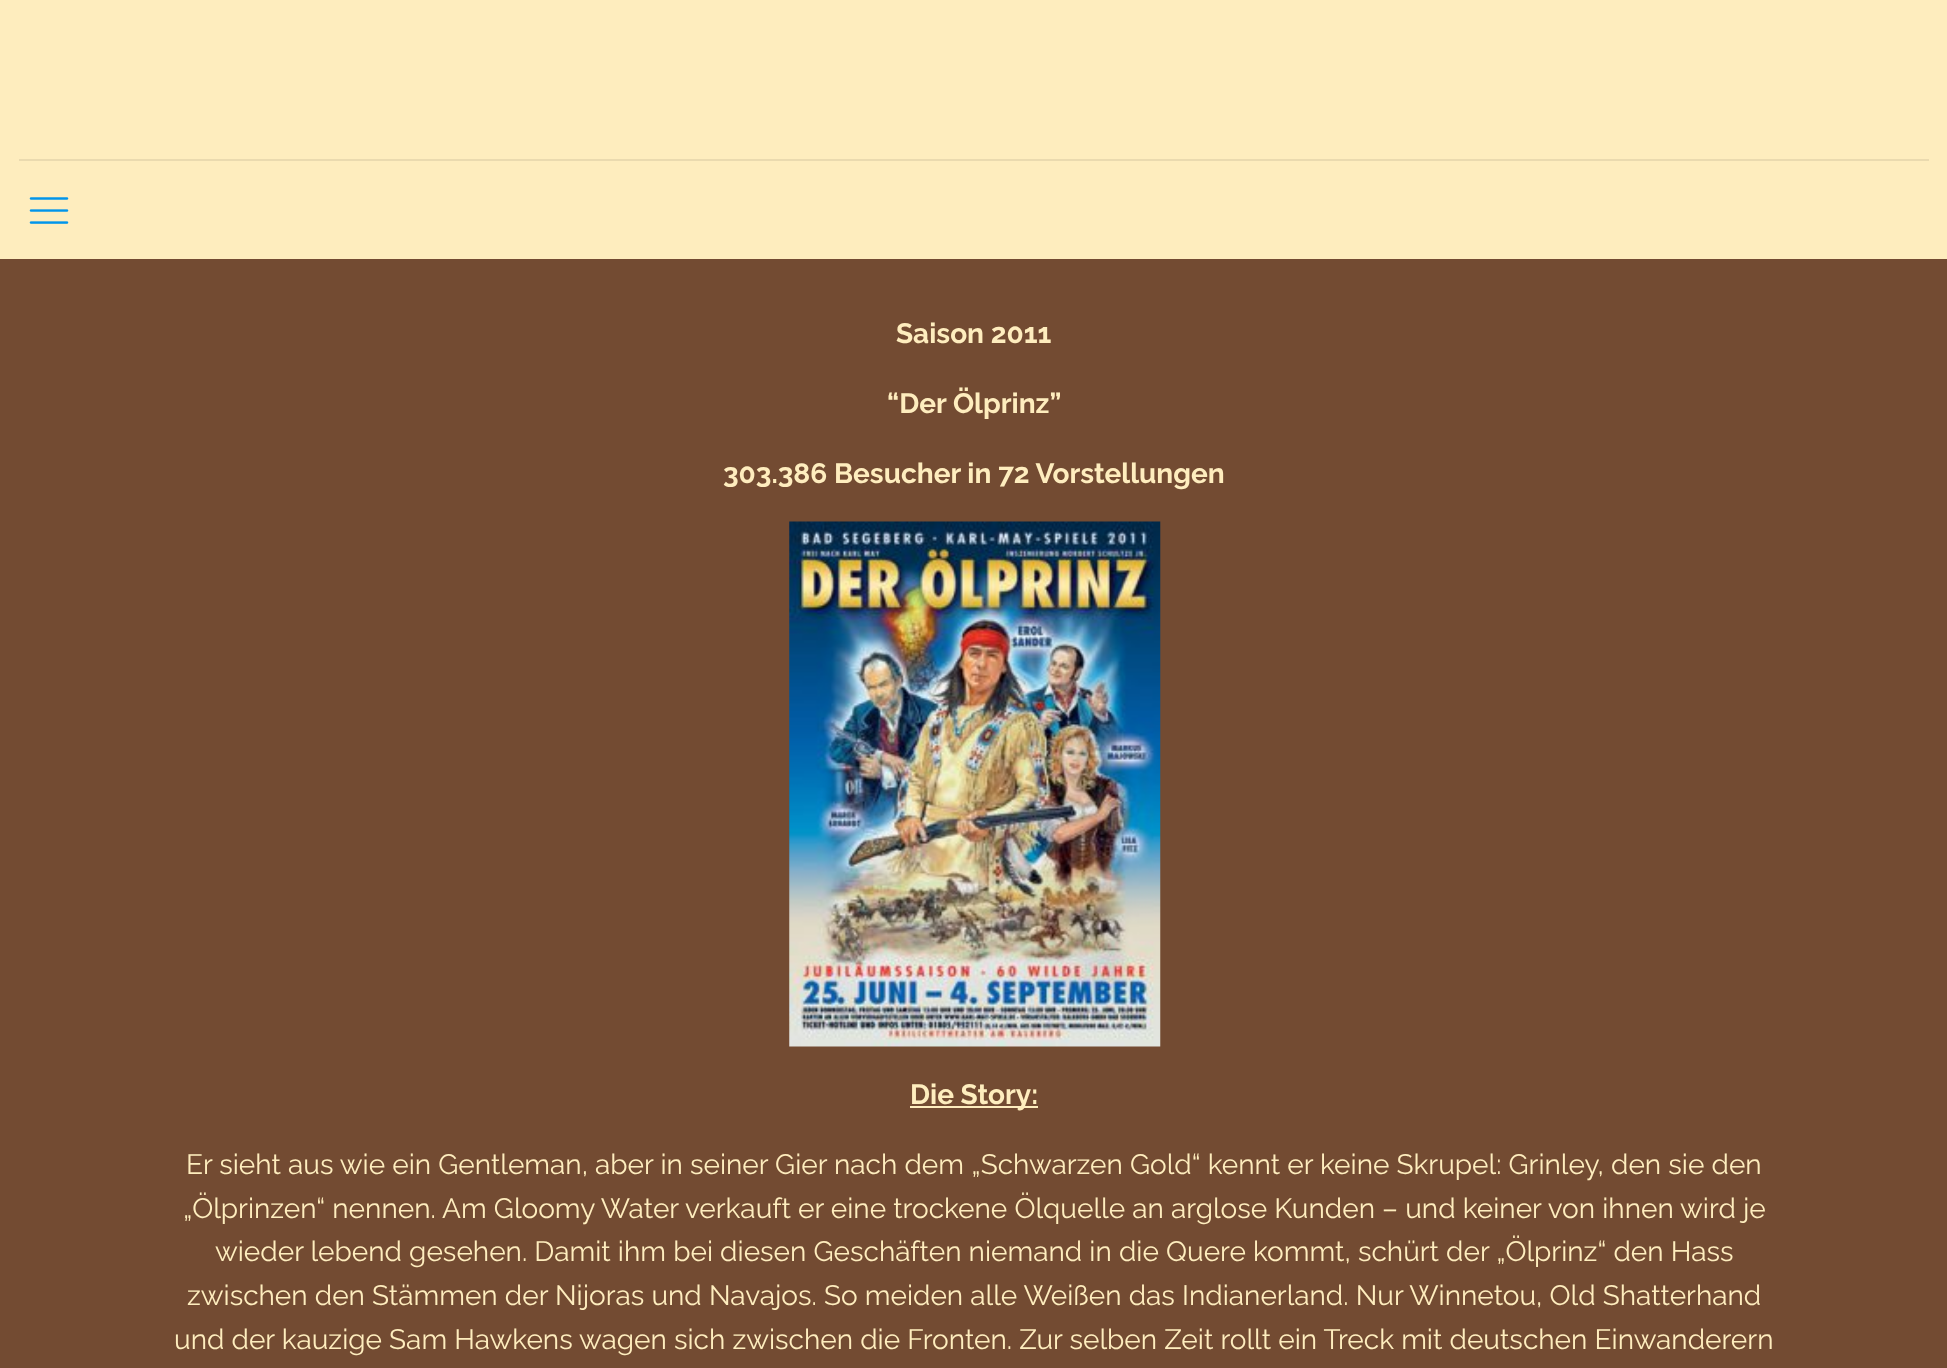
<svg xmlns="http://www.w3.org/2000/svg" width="1947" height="1368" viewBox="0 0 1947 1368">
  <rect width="100%" height="100%" fill="rgb(115,75,50)"/>
  <rect x="0" y="0" width="1947" height="259" fill="rgb(254,237,190)"/>
  <rect x="19" y="159" width="1910" height="2" fill="rgb(234,218,175)"/>
  <image x="29" y="197" width="40" height="27" href="pic1.png"/>
  <g font-family="Raleway" font-size="28" font-weight="bold" fill="rgb(254,237,190)">
    <text x="896" y="343">Saison 2011</text>
    <text x="887" y="413">“Der Ölprinz”</text>
    <text x="723" y="483">303.386 Besucher in 72 Vorstellungen</text>
  </g>
  <image x="789" y="521" width="372" height="526" href="pic2.png"/>
  <rect x="910" y="1106" width="128" height="2" fill="rgb(254,237,190)"/>
  <text x="910" y="1104" font-family="Raleway" font-size="28" font-weight="bold" fill="rgb(254,237,190)">Die Story:</text>
  <g font-family="Raleway" font-size="28" fill="rgb(254,237,190)">
    <text x="186" y="1174">Er sieht aus wie ein Gentleman, aber in seiner Gier nach dem „Schwarzen Gold“ kennt er keine Skrupel: Grinley, den sie den</text>
    <text x="183" y="1218">„Ölprinzen“ nennen. Am Gloomy Water verkauft er eine trockene Ölquelle an arglose Kunden – und keiner von ihnen wird je</text>
    <text x="215" y="1261">wieder lebend gesehen. Damit ihm bei diesen Geschäften niemand in die Quere kommt, schürt der „Ölprinz“ den Hass</text>
    <text x="187" y="1305">zwischen den Stämmen der Nijoras und Navajos. So meiden alle Weißen das Indianerland. Nur Winnetou, Old Shatterhand</text>
    <text x="174" y="1349">und der kauzige Sam Hawkens wagen sich zwischen die Fronten. Zur selben Zeit rollt ein Treck mit deutschen Einwanderern</text>
  </g>
</svg>
